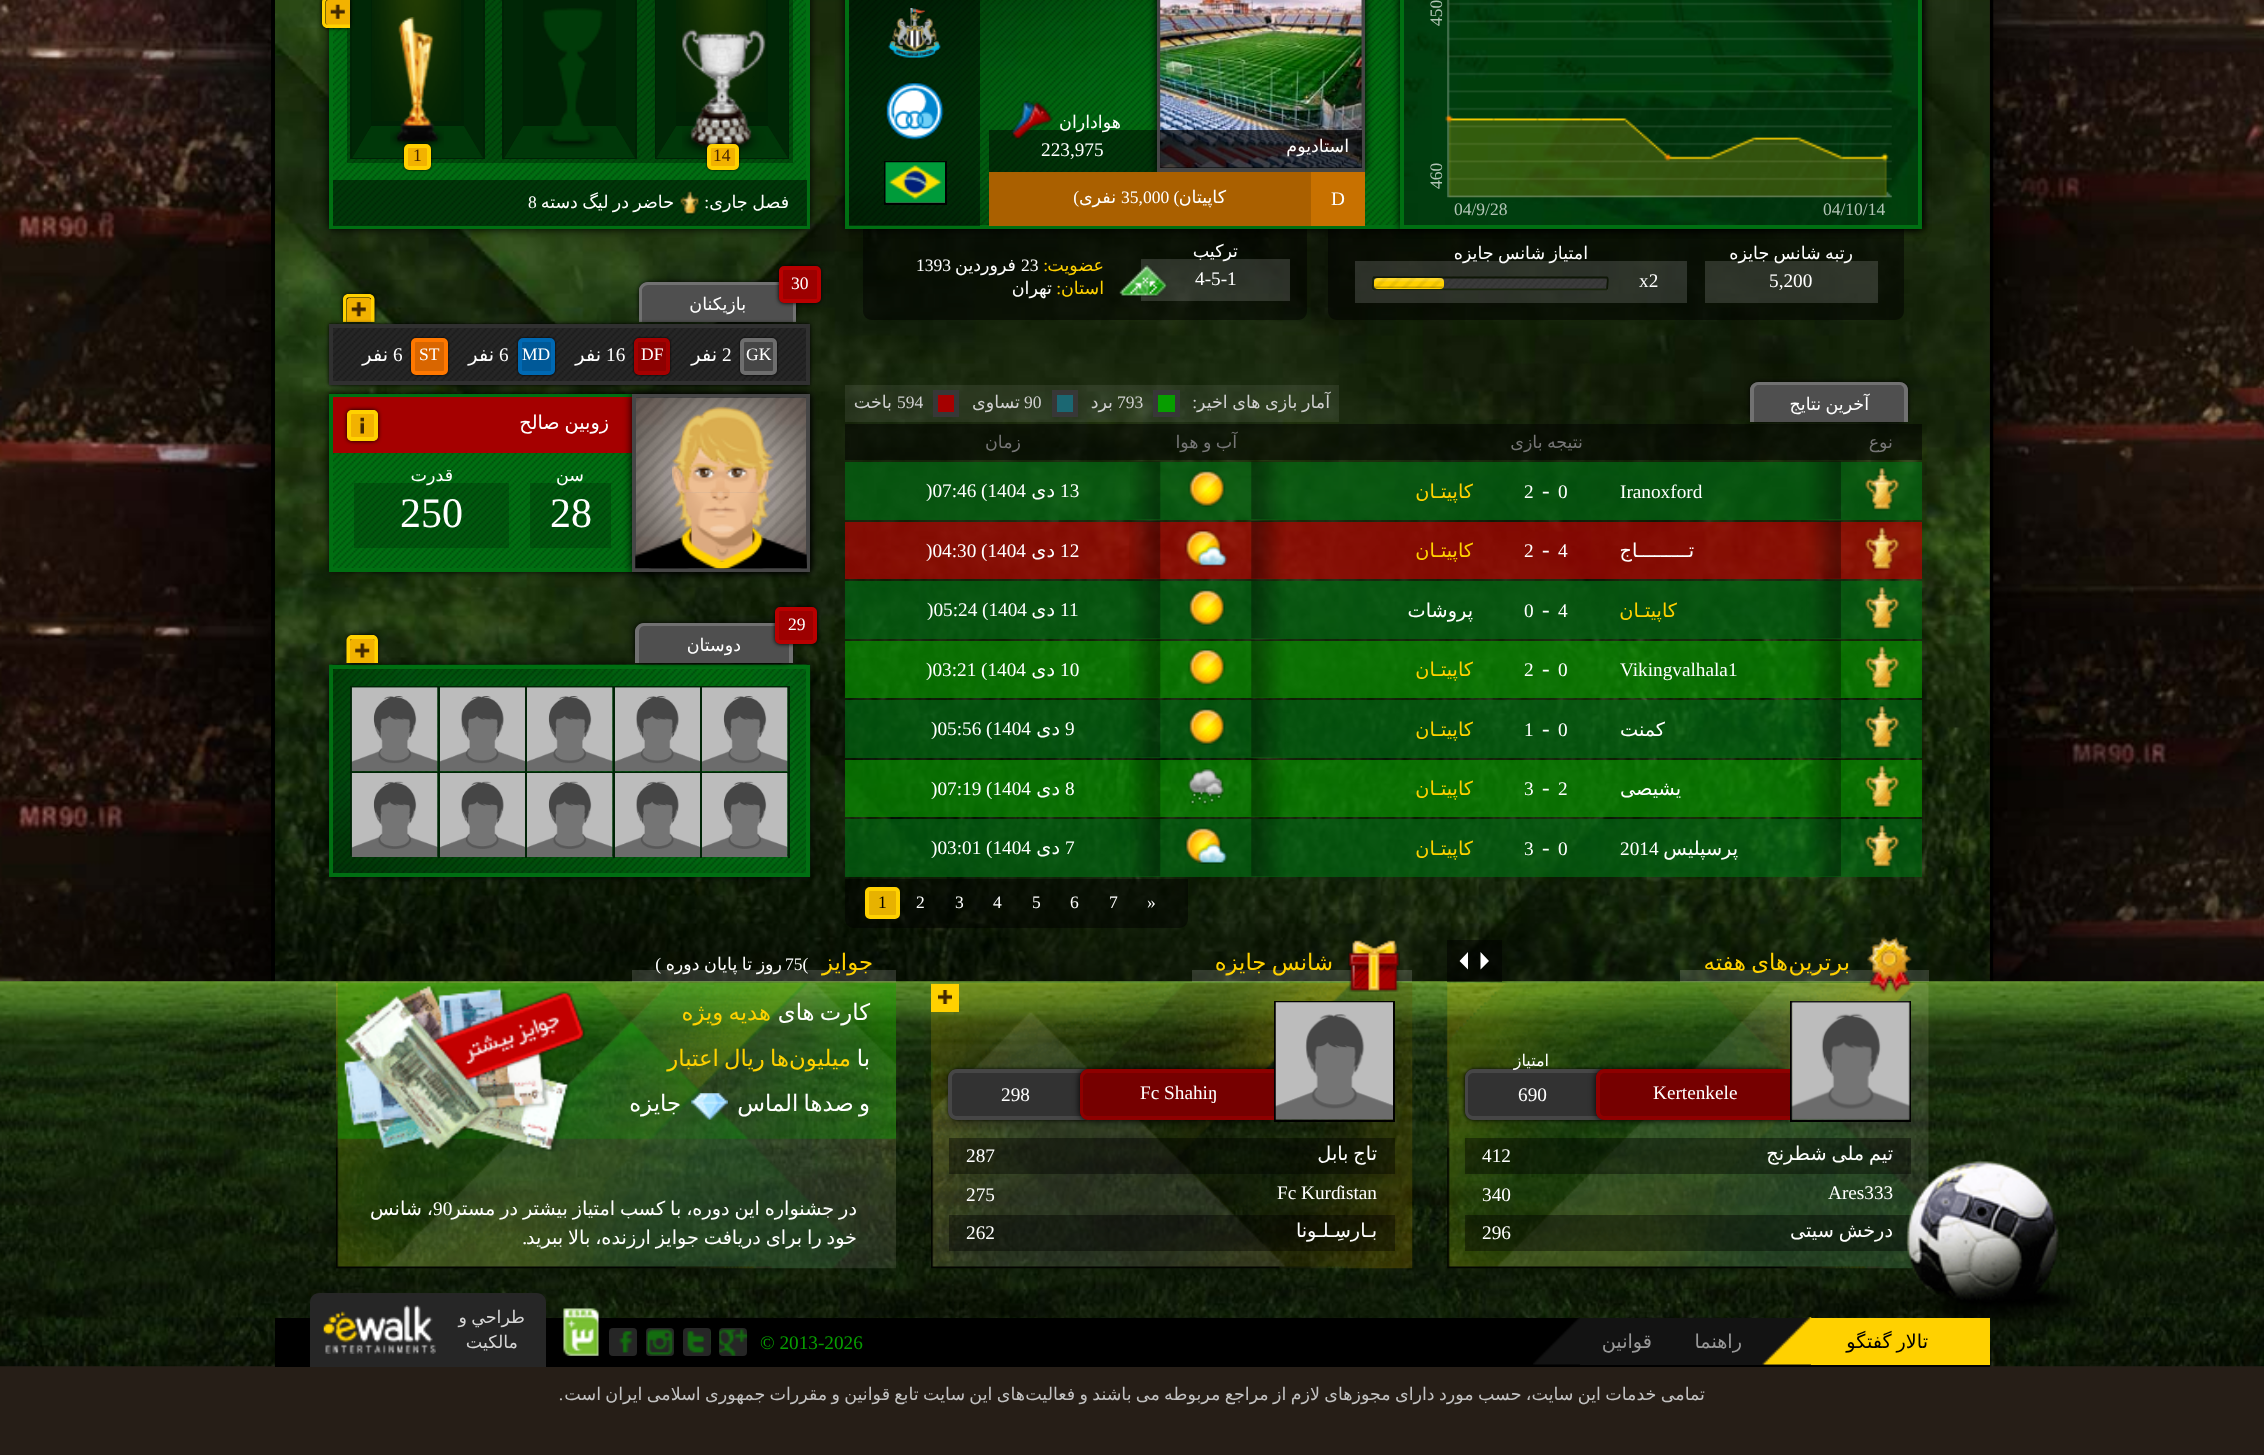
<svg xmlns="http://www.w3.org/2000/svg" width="2264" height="1455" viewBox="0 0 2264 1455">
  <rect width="100%" height="100%" fill="rgb(38,30,23)"/>
  <rect x="1990" y="0" width="4" height="982" fill="rgb(0,0,0)"/>
  <image x="1993" y="0" width="271" height="982" href="pic1.png"/>
  <image x="1993" y="878" width="271" height="103" href="pic2.png"/>
  <image x="275" y="0" width="1715" height="982" href="pic3.png"/>
  <rect x="271" y="0" width="4" height="982" fill="rgb(0,0,0)"/>
  <path d="M1328 229H1904V311C1904 316 1900 320 1895 320H1337C1332 320 1328 316 1328 311Z" fill="rgba(0,0,0,0.5)"/>
  <path d="M863 229H1307V311C1307 316 1303 320 1298 320H872C867 320 863 316 863 311Z" fill="rgba(0,0,0,0.5)"/>
  <rect x="845" y="-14" width="1077" height="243" fill="rgb(0,0,0)" filter="blur(4.5px)"/>
  <image x="849" y="0" width="551" height="225" href="pic4.png"/>
  <rect x="847" y="-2" width="1073" height="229" fill="none" stroke="rgb(0,111,18)" stroke-width="4"/>
  <rect x="1400" y="-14" width="522" height="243" fill="rgb(0,0,0)" filter="blur(4.5px)"/>
  <image x="1404" y="0" width="514" height="225" href="pic5.png"/>
  <rect x="1402" y="-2" width="518" height="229" fill="none" stroke="rgb(0,111,18)" stroke-width="4"/>
  <image x="1447" y="0" width="445" height="198" href="pic6.png"/>
  <g font-family="Liberation Serif" font-size="17.5" fill="rgb(179,197,183)">
    <text x="1442" y="26" transform="rotate(-90 1442 26)">450</text>
    <text x="1442" y="189" transform="rotate(-90 1442 189)">460</text>
    <text x="1823" y="215">04/10/14</text>
    <text x="1454" y="215">04/9/28</text>
  </g>
  <image x="1445" y="114" width="444" height="84" href="pic7.png"/>
  <rect x="1157" y="-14" width="208" height="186" fill="rgb(0,0,0)" filter="blur(4.5px)"/>
  <rect x="1159" y="-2" width="204" height="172" fill="none" stroke="rgb(70,70,70)" stroke-width="4"/>
  <image x="1160" y="0" width="202" height="168" href="pic8.png"/>
  <rect x="989" y="130" width="168" height="42" fill="rgba(0,0,0,0.5)"/>
  <text x="1121" y="128" font-family="DejaVu Sans" font-size="17.5" direction="rtl" fill="rgb(255,255,255)">هواداران</text>
  <image x="1011" y="101" width="42" height="39" href="pic9.png"/>
  <text x="1041" y="156" font-family="Liberation Serif" font-size="19.25" fill="rgb(255,255,255)">223,975</text>
  <rect x="1160" y="130" width="202" height="38" fill="rgba(0,0,0,0.7)"/>
  <text x="1349" y="152" font-family="DejaVu Sans" font-size="17.5" direction="rtl" fill="rgb(255,255,255)">استادیوم</text>
  <rect x="1311" y="172" width="54" height="54" fill="rgb(200,113,0)"/>
  <text x="1331" y="205" font-family="Liberation Serif" font-size="19.25" fill="rgb(255,255,255)">D</text>
  <rect x="989" y="172" width="322" height="54" fill="rgb(170,96,0)"/>
  <text x="1226" y="203" font-family="DejaVu Sans" font-size="17.5" direction="rtl" fill="rgb(255,255,255)">کاپیتان</text>
  <text x="1121" y="203" font-family="Liberation Serif" font-size="17.5" fill="rgb(255,255,255)">35,000 (</text>
  <text x="1116" y="203" font-family="DejaVu Sans" font-size="17.5" direction="rtl" fill="rgb(255,255,255)">نفری</text>
  <text x="1079" y="203" font-family="Liberation Serif" font-size="17.5" direction="rtl" fill="rgb(255,255,255)">)</text>
  <rect x="849" y="0" width="131" height="226" fill="rgba(0,0,0,0.5)"/>
  <image x="888" y="7" width="53" height="52" href="pic10.png"/>
  <image x="885" y="82" width="59" height="58" href="pic11.png"/>
  <rect x="886" y="202" width="59" height="1" fill="rgb(79,79,79)"/>
  <rect x="885" y="162" width="61" height="42" fill="none" stroke="rgb(0,0,0)" stroke-width="2"/>
  <image x="885" y="162" width="60" height="41" href="pic12.png"/>
  <rect x="1705" y="261" width="173" height="42" fill="rgba(255,255,255,0.15)"/>
  <text x="1853" y="259" word-spacing="-1.25" font-family="DejaVu Sans" font-size="17.5" direction="rtl" fill="rgb(255,255,255)">رتبه شانس جایزه</text>
  <text x="1769" y="287" font-family="Liberation Serif" font-size="19.25" fill="rgb(255,255,255)">5,200</text>
  <rect x="1355" y="261" width="332" height="42" fill="rgba(255,255,255,0.15)"/>
  <text x="1588" y="259" word-spacing="-1.25" font-family="DejaVu Sans" font-size="17.5" direction="rtl" fill="rgb(255,255,255)">امتیاز شانس جایزه</text>
  <text x="1639" y="287" font-family="Liberation Serif" font-size="19.25" fill="rgb(255,255,255)">x2</text>
  <rect x="1372" y="277" width="236" height="14" rx="2" fill="rgb(59,59,59)"/>
  <image x="1372" y="276" width="236" height="13" href="pic13.png"/>
  <path d="M1373 277.5H1606.5C1608.5 277.5 1607.5 283 1607.5 283.5L1607 289.5" fill="none" stroke="rgb(15,23,7)" stroke-width="1.8"/>
  <path d="M1607 289.5H1374C1372 289.5 1373 284 1373 283.5V277.5" fill="none" stroke="rgb(24,37,12)" stroke-width="1.8"/>
  <rect x="1374" y="278" width="70" height="11" rx="4" fill="rgb(255,209,0)"/>
  <image x="1374" y="278" width="70" height="10" href="pic14.png"/>
  <rect x="1141" y="259" width="149" height="42" fill="rgba(255,255,255,0.15)"/>
  <text x="1238" y="257" font-family="DejaVu Sans" font-size="17.5" direction="rtl" fill="rgb(255,255,255)">ترکیب</text>
  <text x="1195" y="285" font-family="Liberation Serif" font-size="19.25" fill="rgb(255,255,255)">4-5-1</text>
  <image x="1119" y="264" width="49" height="33" href="pic15.png"/>
  <text x="1104" y="271" font-family="DejaVu Sans" font-size="17.5" direction="rtl" fill="rgb(255,209,0)">عضویت</text>
  <text x="1048" y="271" font-family="Liberation Serif" font-size="17.5" direction="rtl" fill="rgb(255,209,0)">:</text>
  <text x="1021" y="271" font-family="Liberation Serif" font-size="17.5" fill="rgb(255,255,255)">23</text>
  <text x="1016" y="271" font-family="DejaVu Sans" font-size="17.5" direction="rtl" fill="rgb(255,255,255)">فروردين</text>
  <text x="916" y="271" font-family="Liberation Serif" font-size="17.5" fill="rgb(255,255,255)">1393</text>
  <text x="1104" y="294" font-family="DejaVu Sans" font-size="17.5" direction="rtl" fill="rgb(255,209,0)">استان</text>
  <text x="1061" y="294" font-family="Liberation Serif" font-size="17.5" direction="rtl" fill="rgb(255,209,0)">:</text>
  <text x="1052" y="294" font-family="DejaVu Sans" font-size="17.5" direction="rtl" fill="rgb(255,255,255)">تهران</text>
  <rect x="329" y="-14" width="481" height="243" fill="rgb(0,0,0)" filter="blur(4.5px)"/>
  <rect x="333" y="0" width="473" height="225" fill="rgb(0,111,18)"/>
  <image x="333" y="0" width="473" height="225" href="pic16.png"/>
  <rect x="331" y="-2" width="477" height="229" fill="none" stroke="rgb(0,111,18)" stroke-width="4"/>
  <rect x="347" y="0" width="446" height="163" fill="rgba(0,0,0,0.3)"/>
  <rect x="655" y="0" width="134" height="159" fill="rgb(0,34,5)"/>
  <path d="M788-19V158L768 126V-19Z" fill="rgb(0,39,6)"/>
  <path d="M788 158H656L676 126H768Z" fill="rgb(0,56,9)"/>
  <path d="M656 158V-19H676V126Z" fill="rgb(0,39,6)"/>
  <image x="676" y="0" width="90" height="112" href="pic17.png"/>
  <image x="682" y="29" width="84" height="126" href="pic18.png"/>
  <rect x="707" y="144" width="32" height="26" rx="5" fill="rgb(0,0,0)" filter="blur(1px)"/>
  <rect x="709" y="146" width="28" height="22" rx="3" fill="rgb(242,178,0)" stroke="rgb(255,209,0)" stroke-width="4"/>
  <text x="713" y="161" font-family="Liberation Serif" font-size="17.5" fill="rgb(69,37,0)">14</text>
  <rect x="502" y="0" width="135" height="159" fill="rgb(0,34,5)"/>
  <path d="M635-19V158L616 126V-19Z" fill="rgb(0,39,6)"/>
  <path d="M635 158H504L523 126H616Z" fill="rgb(0,56,9)"/>
  <path d="M504 158V-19H523V126Z" fill="rgb(0,39,6)"/>
  <image x="542" y="8" width="61" height="140" href="pic19.png"/>
  <rect x="350" y="0" width="135" height="159" fill="rgb(0,34,5)"/>
  <path d="M483-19V158L464 126V-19Z" fill="rgb(0,39,6)"/>
  <path d="M483 158H352L371 126H464Z" fill="rgb(0,56,9)"/>
  <path d="M352 158V-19H371V126Z" fill="rgb(0,39,6)"/>
  <rect x="322" y="-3" width="28" height="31" rx="5" fill="rgb(0,0,0)" filter="blur(2px)"/>
  <path d="M328 0H350V25H328C327 25 326 24 326 23V2C326 1 327 0 328 0Z" fill="rgb(242,178,0)"/>
  <image x="330" y="4" width="15" height="15" href="pic20.png"/>
  <path d="M327-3.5H350V28H327C324.5 28 322 25.5 322 23V2C322-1 324.5-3.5 327-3.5ZM327 0H350V24.5H327C326.5 24.5 325.5 23.5 325.5 23V2C325.5 1 326.5 0 327 0Z" fill="rgb(255,209,0)" fill-rule="evenodd"/>
  <image x="372" y="0" width="89" height="121" href="pic21.png"/>
  <image x="390" y="17" width="54" height="131" href="pic22.png"/>
  <rect x="404" y="144" width="27" height="26" rx="5" fill="rgb(0,0,0)" filter="blur(1px)"/>
  <rect x="406" y="146" width="23" height="22" rx="3" fill="rgb(242,178,0)" stroke="rgb(255,209,0)" stroke-width="4"/>
  <text x="413" y="161" font-family="Liberation Serif" font-size="17.5" fill="rgb(69,37,0)">1</text>
  <rect x="333" y="180" width="474" height="46" fill="rgba(0,0,0,0.5)"/>
  <text x="789" y="208" word-spacing="-1" font-family="DejaVu Sans" font-size="17.5" direction="rtl" fill="rgb(255,255,255)">فصل جاری</text>
  <text x="709" y="208" font-family="Liberation Serif" font-size="17.5" direction="rtl" fill="rgb(255,255,255)">:</text>
  <image x="679" y="190" width="21" height="25" href="pic23.png"/>
  <text x="674" y="208" word-spacing="-1.25" font-family="DejaVu Sans" font-size="17.5" direction="rtl" fill="rgb(255,255,255)">حاضر در لیگ دسته</text>
  <text x="528" y="208" font-family="Liberation Serif" font-size="17.5" fill="rgb(255,255,255)">8</text>
  <rect x="845" y="385" width="494" height="37" fill="rgba(255,255,255,0.08)"/>
  <text x="1197" y="408" font-family="Liberation Serif" font-size="17.5" direction="rtl" fill="rgb(208,208,208)">:</text>
  <text x="1330" y="408" word-spacing="-1" font-family="DejaVu Sans" font-size="17.5" direction="rtl" fill="rgb(208,208,208)">آمار بازی های اخیر</text>
  <rect x="1155.5" y="392.5" width="22" height="22" fill="rgb(7,157,0)" stroke="rgb(55,55,55)" stroke-width="5"/>
  <text x="1117" y="408" font-family="Liberation Serif" font-size="17.5" fill="rgb(208,208,208)">793</text>
  <text x="1113" y="408" font-family="DejaVu Sans" font-size="17.5" direction="rtl" fill="rgb(208,208,208)">برد</text>
  <rect x="1054.5" y="392.5" width="21" height="22" fill="rgb(27,103,114)" stroke="rgb(55,55,55)" stroke-width="5"/>
  <text x="1024" y="408" font-family="Liberation Serif" font-size="17.5" fill="rgb(208,208,208)">90</text>
  <text x="1020" y="408" font-family="DejaVu Sans" font-size="17.5" direction="rtl" fill="rgb(208,208,208)">تساوی</text>
  <rect x="935.5" y="392.5" width="21" height="22" fill="rgb(165,0,0)" stroke="rgb(55,55,55)" stroke-width="5"/>
  <text x="897" y="408" font-family="Liberation Serif" font-size="17.5" fill="rgb(208,208,208)">594</text>
  <text x="892" y="408" font-family="DejaVu Sans" font-size="17.5" direction="rtl" fill="rgb(208,208,208)">باخت</text>
  <rect x="1750" y="382" width="158" height="40" rx="9" fill="rgb(0,0,0)" filter="blur(2.5px)"/>
  <rect x="1841" y="424" width="81" height="36" fill="rgba(0,0,0,0.5)"/>
  <text x="1893" y="448" font-family="DejaVu Sans" font-size="17.5" direction="rtl" fill="rgb(118,118,118)">نوع</text>
  <rect x="1251" y="424" width="590" height="36" fill="rgba(0,0,0,0.5)"/>
  <text x="1583" y="448" word-spacing="-1.25" font-family="DejaVu Sans" font-size="17.5" direction="rtl" fill="rgb(118,118,118)">نتیجه بازی</text>
  <rect x="1160" y="424" width="91" height="36" fill="rgba(0,0,0,0.5)"/>
  <text x="1237" y="448" word-spacing="-1.25" font-family="DejaVu Sans" font-size="17.5" direction="rtl" fill="rgb(118,118,118)">آب و هوا</text>
  <rect x="845" y="424" width="315" height="36" fill="rgba(0,0,0,0.5)"/>
  <text x="1021" y="448" font-family="DejaVu Sans" font-size="17.5" direction="rtl" fill="rgb(118,118,118)">زمان</text>
  <rect x="1841" y="462" width="81" height="58" fill="rgba(0,111,18,0.64)"/>
  <image x="1864" y="467" width="37" height="44" href="pic24.png"/>
  <rect x="1251" y="462" width="590" height="58" fill="rgba(0,111,18,0.64)"/>
  <image x="1251" y="461" width="590" height="59" href="pic25.png"/>
  <g font-family="Liberation Serif" font-size="19.25" fill="rgb(255,255,255)">
    <text x="1620" y="498">Iranoxford</text>
    <text x="1558" y="498">0</text>
  </g>
  <text x="1542" y="498" font-family="Liberation Serif" font-size="22.75" fill="rgb(255,255,255)">-</text>
  <text x="1524" y="498" font-family="Liberation Serif" font-size="19.25" fill="rgb(255,255,255)">2</text>
  <text x="1473" y="498" font-family="DejaVu Sans" font-size="19.25" direction="rtl" fill="rgb(255,209,0)">کاپیتـان</text>
  <rect x="1160" y="462" width="91" height="58" fill="rgba(0,111,18,0.64)"/>
  <image x="1188" y="470" width="38" height="37" href="pic26.png"/>
  <rect x="845" y="462" width="315" height="58" fill="rgba(0,111,18,0.64)"/>
  <image x="1130" y="461" width="31" height="59" href="pic27.png"/>
  <text x="1060" y="497" font-family="Liberation Serif" font-size="19.25" fill="rgb(255,255,255)">13</text>
  <text x="1055" y="497" font-family="DejaVu Sans" font-size="19.25" direction="rtl" fill="rgb(255,255,255)">دی</text>
  <text x="926" y="497" font-family="Liberation Serif" font-size="19.25" fill="rgb(255,255,255)">)07:46 (1404</text>
  <rect x="1841" y="522" width="81" height="57" fill="rgba(196,0,0,0.64)"/>
  <image x="1864" y="526" width="37" height="45" href="pic28.png"/>
  <rect x="1251" y="522" width="590" height="57" fill="rgba(196,0,0,0.64)"/>
  <image x="1251" y="521" width="590" height="58" href="pic29.png"/>
  <text x="1694" y="557" font-family="DejaVu Sans" font-size="19.25" direction="rtl" fill="rgb(255,255,255)">تـــــــــاج</text>
  <text x="1558" y="557" font-family="Liberation Serif" font-size="19.25" fill="rgb(255,255,255)">4</text>
  <text x="1542" y="557" font-family="Liberation Serif" font-size="22.75" fill="rgb(255,255,255)">-</text>
  <text x="1524" y="557" font-family="Liberation Serif" font-size="19.25" fill="rgb(255,255,255)">2</text>
  <text x="1473" y="557" font-family="DejaVu Sans" font-size="19.25" direction="rtl" fill="rgb(255,209,0)">کاپیتـان</text>
  <rect x="1160" y="522" width="91" height="57" fill="rgba(196,0,0,0.64)"/>
  <image x="1184" y="529" width="44" height="38" href="pic30.png"/>
  <rect x="845" y="522" width="315" height="57" fill="rgba(196,0,0,0.64)"/>
  <image x="1129" y="521" width="32" height="58" href="pic31.png"/>
  <text x="1060" y="557" font-family="Liberation Serif" font-size="19.25" fill="rgb(255,255,255)">12</text>
  <text x="1055" y="557" font-family="DejaVu Sans" font-size="19.25" direction="rtl" fill="rgb(255,255,255)">دی</text>
  <text x="926" y="557" font-family="Liberation Serif" font-size="19.25" fill="rgb(255,255,255)">)04:30 (1404</text>
  <rect x="1841" y="581" width="81" height="58" fill="rgba(0,111,18,0.64)"/>
  <image x="1864" y="585" width="37" height="45" href="pic32.png"/>
  <rect x="1251" y="581" width="590" height="58" fill="rgba(0,111,18,0.64)"/>
  <image x="1251" y="580" width="590" height="59" href="pic33.png"/>
  <text x="1677" y="617" font-family="DejaVu Sans" font-size="19.25" direction="rtl" fill="rgb(255,209,0)">کاپیتـان</text>
  <text x="1558" y="617" font-family="Liberation Serif" font-size="19.25" fill="rgb(255,255,255)">4</text>
  <text x="1542" y="617" font-family="Liberation Serif" font-size="22.75" fill="rgb(255,255,255)">-</text>
  <text x="1524" y="617" font-family="Liberation Serif" font-size="19.25" fill="rgb(255,255,255)">0</text>
  <text x="1473" y="617" font-family="DejaVu Sans" font-size="19.25" direction="rtl" fill="rgb(255,255,255)">پروشات</text>
  <rect x="1160" y="581" width="91" height="58" fill="rgba(0,111,18,0.64)"/>
  <image x="1188" y="589" width="37" height="37" href="pic34.png"/>
  <rect x="845" y="581" width="315" height="58" fill="rgba(0,111,18,0.64)"/>
  <image x="1130" y="580" width="31" height="59" href="pic35.png"/>
  <text x="1060" y="616" font-family="Liberation Serif" font-size="19.25" fill="rgb(255,255,255)">11</text>
  <text x="1055" y="616" font-family="DejaVu Sans" font-size="19.25" direction="rtl" fill="rgb(255,255,255)">دی</text>
  <text x="927" y="616" font-family="Liberation Serif" font-size="19.25" fill="rgb(255,255,255)">)05:24 (1404</text>
  <rect x="1841" y="641" width="81" height="57" fill="rgba(7,157,0,0.64)"/>
  <image x="1864" y="645" width="37" height="45" href="pic36.png"/>
  <rect x="1251" y="641" width="590" height="57" fill="rgba(7,157,0,0.64)"/>
  <image x="1251" y="640" width="590" height="58" href="pic37.png"/>
  <g font-family="Liberation Serif" font-size="19.25" fill="rgb(255,255,255)">
    <text x="1620" y="676">Vikingvalhala1</text>
    <text x="1558" y="676">0</text>
  </g>
  <text x="1542" y="676" font-family="Liberation Serif" font-size="22.75" fill="rgb(255,255,255)">-</text>
  <text x="1524" y="676" font-family="Liberation Serif" font-size="19.25" fill="rgb(255,255,255)">2</text>
  <text x="1473" y="676" font-family="DejaVu Sans" font-size="19.25" direction="rtl" fill="rgb(255,209,0)">کاپیتـان</text>
  <rect x="1160" y="641" width="91" height="57" fill="rgba(7,157,0,0.64)"/>
  <image x="1188" y="648" width="38" height="38" href="pic38.png"/>
  <rect x="845" y="641" width="315" height="57" fill="rgba(7,157,0,0.64)"/>
  <image x="1129" y="640" width="32" height="58" href="pic39.png"/>
  <text x="1060" y="676" font-family="Liberation Serif" font-size="19.25" fill="rgb(255,255,255)">10</text>
  <text x="1055" y="676" font-family="DejaVu Sans" font-size="19.25" direction="rtl" fill="rgb(255,255,255)">دی</text>
  <text x="926" y="676" font-family="Liberation Serif" font-size="19.25" fill="rgb(255,255,255)">)03:21 (1404</text>
  <rect x="1841" y="700" width="81" height="58" fill="rgba(0,111,18,0.64)"/>
  <image x="1864" y="705" width="37" height="44" href="pic40.png"/>
  <rect x="1251" y="700" width="590" height="58" fill="rgba(0,111,18,0.64)"/>
  <image x="1251" y="699" width="590" height="59" href="pic41.png"/>
  <text x="1665" y="736" font-family="DejaVu Sans" font-size="19.25" direction="rtl" fill="rgb(255,255,255)">کمنت</text>
  <text x="1558" y="736" font-family="Liberation Serif" font-size="19.25" fill="rgb(255,255,255)">0</text>
  <text x="1542" y="736" font-family="Liberation Serif" font-size="22.75" fill="rgb(255,255,255)">-</text>
  <text x="1524" y="736" font-family="Liberation Serif" font-size="19.25" fill="rgb(255,255,255)">1</text>
  <text x="1473" y="736" font-family="DejaVu Sans" font-size="19.25" direction="rtl" fill="rgb(255,209,0)">کاپیتـان</text>
  <rect x="1160" y="700" width="91" height="58" fill="rgba(0,111,18,0.64)"/>
  <image x="1188" y="708" width="38" height="37" href="pic42.png"/>
  <rect x="845" y="700" width="315" height="58" fill="rgba(0,111,18,0.64)"/>
  <image x="1130" y="699" width="31" height="59" href="pic43.png"/>
  <text x="1065" y="735" font-family="Liberation Serif" font-size="19.25" fill="rgb(255,255,255)">9</text>
  <text x="1060" y="735" font-family="DejaVu Sans" font-size="19.25" direction="rtl" fill="rgb(255,255,255)">دی</text>
  <text x="931" y="735" font-family="Liberation Serif" font-size="19.25" fill="rgb(255,255,255)">)05:56 (1404</text>
  <rect x="1841" y="760" width="81" height="57" fill="rgba(7,157,0,0.64)"/>
  <image x="1864" y="764" width="37" height="45" href="pic44.png"/>
  <rect x="1251" y="760" width="590" height="57" fill="rgba(7,157,0,0.64)"/>
  <image x="1251" y="759" width="590" height="58" href="pic45.png"/>
  <text x="1681" y="795" font-family="DejaVu Sans" font-size="19.25" direction="rtl" fill="rgb(255,255,255)">یشیصی</text>
  <text x="1558" y="795" font-family="Liberation Serif" font-size="19.25" fill="rgb(255,255,255)">2</text>
  <text x="1542" y="795" font-family="Liberation Serif" font-size="22.75" fill="rgb(255,255,255)">-</text>
  <text x="1524" y="795" font-family="Liberation Serif" font-size="19.25" fill="rgb(255,255,255)">3</text>
  <text x="1473" y="795" font-family="DejaVu Sans" font-size="19.25" direction="rtl" fill="rgb(255,209,0)">کاپیتـان</text>
  <rect x="1160" y="760" width="91" height="57" fill="rgba(7,157,0,0.64)"/>
  <image x="1187" y="768" width="38" height="37" href="pic46.png"/>
  <rect x="845" y="760" width="315" height="57" fill="rgba(7,157,0,0.64)"/>
  <image x="1129" y="759" width="32" height="58" href="pic47.png"/>
  <text x="1065" y="795" font-family="Liberation Serif" font-size="19.25" fill="rgb(255,255,255)">8</text>
  <text x="1060" y="795" font-family="DejaVu Sans" font-size="19.25" direction="rtl" fill="rgb(255,255,255)">دی</text>
  <text x="931" y="795" font-family="Liberation Serif" font-size="19.25" fill="rgb(255,255,255)">)07:19 (1404</text>
  <rect x="1841" y="819" width="81" height="58" fill="rgba(0,111,18,0.64)"/>
  <image x="1864" y="824" width="37" height="44" href="pic48.png"/>
  <rect x="1251" y="819" width="590" height="58" fill="rgba(0,111,18,0.64)"/>
  <image x="1251" y="818" width="590" height="59" href="pic49.png"/>
  <text x="1738" y="855" font-family="DejaVu Sans" font-size="19.25" direction="rtl" fill="rgb(255,255,255)">پرسپلیس</text>
  <g font-family="Liberation Serif" font-size="19.25" fill="rgb(255,255,255)">
    <text x="1620" y="855">2014</text>
    <text x="1558" y="855">0</text>
  </g>
  <text x="1542" y="855" font-family="Liberation Serif" font-size="22.75" fill="rgb(255,255,255)">-</text>
  <text x="1524" y="855" font-family="Liberation Serif" font-size="19.25" fill="rgb(255,255,255)">3</text>
  <text x="1473" y="855" font-family="DejaVu Sans" font-size="19.25" direction="rtl" fill="rgb(255,209,0)">کاپیتـان</text>
  <rect x="1160" y="819" width="91" height="58" fill="rgba(0,111,18,0.64)"/>
  <image x="1184" y="827" width="44" height="37" href="pic50.png"/>
  <rect x="845" y="819" width="315" height="58" fill="rgba(0,111,18,0.64)"/>
  <image x="1130" y="818" width="31" height="59" href="pic51.png"/>
  <text x="1065" y="854" font-family="Liberation Serif" font-size="19.25" fill="rgb(255,255,255)">7</text>
  <text x="1060" y="854" font-family="DejaVu Sans" font-size="19.25" direction="rtl" fill="rgb(255,255,255)">دی</text>
  <text x="931" y="854" font-family="Liberation Serif" font-size="19.25" fill="rgb(255,255,255)">)03:01 (1404</text>
  <path d="M845 879H1188V919C1188 924 1184 928 1179 928H854C849 928 845 924 845 919Z" fill="rgba(0,0,0,0.5)"/>
  <g font-family="Liberation Serif" font-size="17.5" fill="rgb(255,255,255)">
    <text x="1147" y="908">»</text>
    <text x="1109" y="908">7</text>
    <text x="1070" y="908">6</text>
    <text x="1032" y="908">5</text>
    <text x="993" y="908">4</text>
    <text x="955" y="908">3</text>
    <text x="916" y="908">2</text>
  </g>
  <rect x="867" y="889" width="31" height="28" rx="3" fill="rgb(231,178,0)" stroke="rgb(255,209,0)" stroke-width="4"/>
  <text x="878" y="908" font-family="Liberation Serif" font-size="17.5" fill="rgb(0,0,0)">1</text>
  <path d="M1759 382H1899C1904 382 1908 386 1908 391V422H1750V391C1750 386 1754 382 1759 382Z" fill="rgb(79,79,79)"/>
  <path d="M1759 382H1899C1904 382 1908 385 1908 390V422H1750V390C1750 385 1754 382 1759 382ZM1759 385H1899C1902 385 1904 387 1904 390V422H1754V390C1754 387 1756 385 1759 385Z" fill="rgb(113,113,113)" fill-rule="evenodd"/>
  <text x="1869" y="410" word-spacing="-1.25" font-family="DejaVu Sans" font-size="17.5" direction="rtl" fill="rgb(255,255,255)">آخرین نتایج</text>
  <rect x="639" y="282" width="157" height="40" rx="9" fill="rgb(0,0,0)" filter="blur(2.5px)"/>
  <path d="M648 282H787C792 282 796 286 796 291V322H639V291C639 286 643 282 648 282Z" fill="rgb(79,79,79)"/>
  <path d="M648 282H788C792 282 796 286 796 290V322H639V290C639 286 643 282 648 282ZM648 285H788C790 285 793 288 793 290V322H642V290C642 288 645 285 648 285Z" fill="rgb(113,113,113)" fill-rule="evenodd"/>
  <rect x="779" y="266" width="42" height="37" rx="5" fill="rgb(0,0,0)" filter="blur(2px)"/>
  <rect x="781" y="268" width="38" height="33" rx="3" fill="rgb(157,0,0)" stroke="rgb(185,0,0)" stroke-width="4"/>
  <text x="791" y="289" font-family="Liberation Serif" font-size="17.5" fill="rgb(255,255,255)">30</text>
  <text x="746" y="310" font-family="DejaVu Sans" font-size="17.5" direction="rtl" fill="rgb(255,255,255)">بازیکنان</text>
  <rect x="343" y="294" width="32" height="28" rx="5" fill="rgb(0,0,0)" filter="blur(2px)"/>
  <path d="M349 298H369C370 298 371 299 371 300V322H347V300C347 299 348 298 349 298Z" fill="rgb(242,178,0)"/>
  <image x="351" y="302" width="15" height="15" href="pic52.png"/>
  <path d="M348 294H369C372 294 374.5 296.5 374.5 299V322H343V299C343 296.5 345.5 294 348 294ZM348 297.5H369C370 297.5 371 298.5 371 299V322H346.5V299C346.5 298.5 347.5 297.5 348 297.5Z" fill="rgb(255,209,0)" fill-rule="evenodd"/>
  <rect x="329" y="324" width="481" height="61" fill="rgb(0,0,0)" filter="blur(2px)"/>
  <rect x="333" y="328" width="473" height="53" fill="rgb(38,38,38)"/>
  <image x="329" y="323" width="480" height="58" href="pic53.png"/>
  <rect x="331" y="326" width="477" height="57" fill="none" stroke="rgb(48,48,48)" stroke-width="4"/>
  <rect x="740" y="338" width="37" height="37" rx="5" fill="rgb(0,0,0)" filter="blur(1px)"/>
  <rect x="742" y="340" width="33" height="33" rx="3" fill="rgb(70,70,70)" stroke="rgb(110,110,110)" stroke-width="4"/>
  <text x="746" y="360" font-family="Liberation Serif" font-size="17.5" fill="rgb(255,255,255)">GK</text>
  <text x="722" y="361" font-family="Liberation Serif" font-size="19.25" fill="rgb(255,255,255)">2</text>
  <text x="717" y="361" font-family="DejaVu Sans" font-size="19.25" direction="rtl" fill="rgb(255,255,255)">نفر</text>
  <rect x="634" y="338" width="36" height="37" rx="5" fill="rgb(0,0,0)" filter="blur(1px)"/>
  <rect x="636" y="340" width="32" height="33" rx="3" fill="rgb(142,0,0)" stroke="rgb(165,0,0)" stroke-width="4"/>
  <text x="641" y="360" font-family="Liberation Serif" font-size="17.5" fill="rgb(255,255,255)">DF</text>
  <text x="606" y="361" font-family="Liberation Serif" font-size="19.25" fill="rgb(255,255,255)">16</text>
  <text x="601" y="361" font-family="DejaVu Sans" font-size="19.25" direction="rtl" fill="rgb(255,255,255)">نفر</text>
  <rect x="518" y="338" width="37" height="37" rx="5" fill="rgb(0,0,0)" filter="blur(1px)"/>
  <rect x="520" y="340" width="33" height="33" rx="3" fill="rgb(0,89,152)" stroke="rgb(0,105,179)" stroke-width="4"/>
  <text x="522" y="360" font-family="Liberation Serif" font-size="17.5" fill="rgb(255,255,255)">MD</text>
  <text x="499" y="361" font-family="Liberation Serif" font-size="19.25" fill="rgb(255,255,255)">6</text>
  <text x="494" y="361" font-family="DejaVu Sans" font-size="19.25" direction="rtl" fill="rgb(255,255,255)">نفر</text>
  <rect x="411" y="338" width="37" height="37" rx="5" fill="rgb(0,0,0)" filter="blur(1px)"/>
  <rect x="413" y="340" width="33" height="33" rx="3" fill="rgb(217,102,0)" stroke="rgb(255,120,0)" stroke-width="4"/>
  <text x="419" y="360" font-family="Liberation Serif" font-size="17.5" fill="rgb(255,255,255)">ST</text>
  <text x="393" y="361" font-family="Liberation Serif" font-size="19.25" fill="rgb(255,255,255)">6</text>
  <text x="388" y="361" font-family="DejaVu Sans" font-size="19.25" direction="rtl" fill="rgb(255,255,255)">نفر</text>
  <rect x="329" y="394" width="481" height="178" fill="rgb(0,0,0)" filter="blur(3.5px)"/>
  <rect x="333" y="453" width="299" height="115" fill="rgb(0,111,18)"/>
  <image x="329" y="393" width="480" height="175" href="pic54.png"/>
  <rect x="331" y="396" width="477" height="174" fill="none" stroke="rgb(0,111,18)" stroke-width="4"/>
  <rect x="333" y="397" width="299" height="56" fill="rgb(165,0,0)"/>
  <rect x="632" y="394" width="178" height="178" fill="rgb(0,0,0)" filter="blur(4.5px)"/>
  <image x="636" y="398" width="170" height="164" href="pic55.png"/>
  <rect x="634" y="396" width="174" height="174" fill="none" stroke="rgb(70,70,70)" stroke-width="4"/>
  <image x="636" y="397" width="170" height="165" href="pic56.png"/>
  <image x="672" y="409" width="98" height="86" href="pic58.png"/>
  <image x="689" y="463" width="64" height="8" href="pic59.png"/>
  <image x="693" y="466" width="55" height="12" href="pic60.png"/>
  <image x="672" y="406" width="102" height="123" href="pic57.png"/>
  <image x="684" y="493" width="76" height="56" href="pic62.png"/>
  <image x="710" y="477" width="20" height="27" href="pic61.png"/>
  <image x="703" y="506" width="34" height="12" href="pic63.png"/>
  <image x="691" y="549" width="62" height="13" href="pic68.png"/>
  <image x="684" y="528" width="78" height="27" href="pic65.png"/>
  <image x="635" y="536" width="172" height="33" href="pic66.png"/>
  <image x="649" y="536" width="158" height="33" href="pic67.png"/>
  <image x="680" y="526" width="84" height="43" href="pic64.png"/>
  <text x="609" y="429" word-spacing="-1.25" font-family="DejaVu Sans" font-size="19.25" direction="rtl" fill="rgb(255,255,255)">زوبین صالح</text>
  <rect x="347" y="410" width="31" height="31" rx="5" fill="rgb(0,0,0)" filter="blur(2px)"/>
  <rect x="347" y="410" width="31" height="31" rx="5" fill="rgb(242,178,0)"/>
  <image x="360" y="417" width="4" height="17" href="pic69.png"/>
  <rect x="349" y="412" width="27" height="27" rx="3" fill="none" stroke="rgb(255,209,0)" stroke-width="4"/>
  <rect x="530" y="483" width="81" height="65" fill="rgba(0,0,0,0.2)"/>
  <text x="584" y="481" font-family="DejaVu Sans" font-size="17.5" direction="rtl" fill="rgb(255,255,255)">سن</text>
  <text x="550" y="527" font-family="Liberation Serif" font-size="42" fill="rgb(255,255,255)">28</text>
  <rect x="354" y="483" width="155" height="65" fill="rgba(0,0,0,0.2)"/>
  <text x="453" y="481" font-family="DejaVu Sans" font-size="17.5" direction="rtl" fill="rgb(255,255,255)">قدرت</text>
  <text x="400" y="527" font-family="Liberation Serif" font-size="42" fill="rgb(255,255,255)">250</text>
  <rect x="329" y="665" width="481" height="212" fill="rgb(0,0,0)" filter="blur(4.5px)"/>
  <image x="329" y="664" width="482" height="213" href="pic70.png"/>
  <rect x="331" y="667" width="477" height="208" fill="none" stroke="rgb(0,111,18)" stroke-width="4"/>
  <rect x="635" y="623" width="158" height="40" rx="9" fill="rgb(0,0,0)" filter="blur(2.5px)"/>
  <path d="M644 623H784C789 623 793 627 793 632V663H635V632C635 627 639 623 644 623Z" fill="rgb(79,79,79)"/>
  <path d="M644 623H784C789 623 793 627 793 632V663H635V632C635 627 639 623 644 623ZM644 626H784C787 626 789 629 789 632V663H639V632C639 629 641 626 644 626Z" fill="rgb(113,113,113)" fill-rule="evenodd"/>
  <rect x="775" y="607" width="42" height="37" rx="5" fill="rgb(0,0,0)" filter="blur(2px)"/>
  <rect x="777" y="609" width="38" height="33" rx="3" fill="rgb(157,0,0)" stroke="rgb(185,0,0)" stroke-width="4"/>
  <text x="788" y="630" font-family="Liberation Serif" font-size="17.5" fill="rgb(255,255,255)">29</text>
  <text x="741" y="651" font-family="DejaVu Sans" font-size="17.5" direction="rtl" fill="rgb(255,255,255)">دوستان</text>
  <rect x="347" y="635" width="31" height="28" rx="5" fill="rgb(0,0,0)" filter="blur(2px)"/>
  <path d="M352 639H373C374 639 375 640 375 641V663H350V641C350 640 351 639 352 639Z" fill="rgb(242,178,0)"/>
  <image x="355" y="643" width="15" height="15" href="pic71.png"/>
  <path d="M352 635H373C375.5 635 378 637.5 378 640.5V663H346.5V640.5C346.5 637.5 349 635 352 635ZM352 639H373C373.5 639 374.5 639.5 374.5 640.5V663H350V640.5C350 639.5 351 639 352 639Z" fill="rgb(255,209,0)" fill-rule="evenodd"/>
  <rect x="352" y="688" width="436" height="166" fill="rgba(0,0,0,0.3)"/>
  <rect x="437" y="854" width="352" height="2" fill="rgb(0,36,6)"/>
  <rect x="350" y="686" width="2" height="170" fill="rgb(0,36,6)"/>
  <rect x="352" y="686" width="437" height="2" fill="rgb(0,36,6)"/>
  <rect x="438" y="686" width="2" height="86" fill="rgb(0,36,6)"/>
  <image x="351" y="687" width="87" height="85" href="pic72.png"/>
  <rect x="788" y="686" width="2" height="86" fill="rgb(0,36,6)"/>
  <image x="702" y="687" width="86" height="85" href="pic73.png"/>
  <rect x="700" y="686" width="2" height="86" fill="rgb(0,36,6)"/>
  <image x="615" y="687" width="85" height="85" href="pic74.png"/>
  <rect x="613" y="686" width="2" height="86" fill="rgb(0,36,6)"/>
  <image x="527" y="687" width="86" height="85" href="pic75.png"/>
  <rect x="525" y="686" width="2" height="86" fill="rgb(0,36,6)"/>
  <image x="440" y="687" width="85" height="85" href="pic76.png"/>
  <rect x="702" y="772" width="87" height="2" fill="rgb(0,36,6)"/>
  <rect x="788" y="772" width="2" height="86" fill="rgb(0,36,6)"/>
  <image x="702" y="773" width="86" height="84" href="pic77.png"/>
  <rect x="614" y="772" width="88" height="1" fill="rgb(0,36,6)"/>
  <rect x="700" y="772" width="2" height="86" fill="rgb(0,36,6)"/>
  <image x="615" y="773" width="85" height="84" href="pic78.png"/>
  <rect x="527" y="772" width="87" height="2" fill="rgb(0,36,6)"/>
  <rect x="613" y="772" width="2" height="86" fill="rgb(0,36,6)"/>
  <image x="527" y="773" width="86" height="84" href="pic79.png"/>
  <rect x="439" y="772" width="88" height="1" fill="rgb(0,36,6)"/>
  <rect x="525" y="772" width="2" height="86" fill="rgb(0,36,6)"/>
  <image x="440" y="773" width="85" height="84" href="pic78.png"/>
  <rect x="352" y="772" width="87" height="2" fill="rgb(0,36,6)"/>
  <rect x="438" y="772" width="2" height="86" fill="rgb(0,36,6)"/>
  <image x="351" y="773" width="87" height="84" href="pic80.png"/>
  <image x="0" y="0" width="271" height="982" href="pic81.png"/>
  <image x="0" y="885" width="271" height="97" href="pic82.png"/>
  <image x="0" y="981" width="2264" height="386" href="pic83.png"/>
  <image x="1447" y="983" width="482" height="286" href="pic85.png"/>
  <rect x="1465" y="1138" width="446" height="36" fill="rgba(0,0,0,0.4)"/>
  <rect x="1465" y="1215" width="446" height="36" fill="rgba(0,0,0,0.4)"/>
  <image x="1906" y="1161" width="192" height="179" href="pic84.png"/>
  <rect x="1680" y="970" width="249" height="12" fill="rgba(255,255,255,0.15)"/>
  <image x="1867" y="937" width="45" height="57" href="pic86.png"/>
  <g font-family="DejaVu Sans" font-size="22.75" direction="rtl" fill="rgb(255,209,0)">
    <text x="1850" y="970">برترین</text>
    <text x="1788" y="970" word-spacing="-2">های هفته</text>
  </g>
  <rect x="1447" y="940" width="55" height="42" fill="rgba(0,0,0,0.5)"/>
  <path d="M1480.5 969.5V952L1489 961ZM1468 952V969.5L1459.5 961Z" fill="rgb(255,255,255)"/>
  <rect x="1465" y="1069" width="140" height="51" rx="9" fill="rgb(0,0,0)" filter="blur(2px)"/>
  <path d="M1474 1069H1605V1120H1474C1469 1120 1465 1116 1465 1111V1078C1465 1073 1469 1069 1474 1069Z" fill="rgb(50,50,50)"/>
  <path d="M1474 1069H1605V1120H1474C1469 1120 1465 1116 1465 1111V1078C1465 1073 1469 1069 1474 1069ZM1474 1073H1605V1116H1474C1471 1116 1468 1114 1468 1111V1078C1468 1075 1471 1073 1474 1073Z" fill="rgb(70,70,70)" fill-rule="evenodd"/>
  <text x="1549" y="1066" font-family="DejaVu Sans" font-size="16" direction="rtl" fill="rgb(255,255,255)">امتیاز</text>
  <rect x="1596" y="1069" width="194" height="51" rx="9" fill="rgb(0,0,0)" filter="blur(3.5px)"/>
  <rect x="1791" y="1002" width="119" height="119" fill="none" stroke="rgb(0,0,0)" stroke-width="2"/>
  <image x="1791" y="1001" width="119" height="119" href="pic87.png"/>
  <path d="M1605 1069H1790V1120H1605C1600 1120 1596 1116 1596 1111V1078C1596 1073 1600 1069 1605 1069Z" fill="rgb(118,0,0)"/>
  <path d="M1605 1069H1790V1120H1605C1600 1120 1596 1116 1596 1111V1078C1596 1073 1600 1069 1605 1069ZM1605 1073H1790V1116H1605C1602 1116 1600 1114 1600 1111V1078C1600 1075 1602 1073 1605 1073Z" fill="rgb(142,0,0)" fill-rule="evenodd"/>
  <g font-family="Liberation Serif" font-size="19.25" fill="rgb(255,255,255)">
    <text x="1653" y="1099">Kertenkele</text>
    <text x="1518" y="1101">690</text>
  </g>
  <text x="1893" y="1160" word-spacing="-1.25" font-family="DejaVu Sans" font-size="19.25" direction="rtl" fill="rgb(255,255,255)">تیم ملی شطرنج</text>
  <g font-family="Liberation Serif" font-size="19.25" fill="rgb(255,255,255)">
    <text x="1482" y="1162">412</text>
    <text x="1828" y="1199">Ares333</text>
    <text x="1482" y="1201">340</text>
  </g>
  <text x="1893" y="1237" word-spacing="-1.25" font-family="DejaVu Sans" font-size="19.25" direction="rtl" fill="rgb(255,255,255)">درخش سیتی</text>
  <text x="1482" y="1239" font-family="Liberation Serif" font-size="19.25" fill="rgb(255,255,255)">296</text>
  <image x="931" y="983" width="482" height="286" href="pic88.png"/>
  <rect x="1192" y="970" width="220" height="12" fill="rgba(255,255,255,0.15)"/>
  <image x="1348" y="939" width="52" height="53" href="pic89.png"/>
  <text x="1333" y="970" word-spacing="-2" font-family="DejaVu Sans" font-size="22.75" direction="rtl" fill="rgb(255,209,0)">شانس جایزه</text>
  <rect x="931" y="984" width="28" height="28" fill="rgb(255,209,0)"/>
  <image x="938" y="990" width="14" height="14" href="pic90.png"/>
  <rect x="949" y="1069" width="140" height="51" rx="9" fill="rgb(0,0,0)" filter="blur(2px)"/>
  <path d="M958 1069H1089V1120H958C953 1120 949 1116 949 1111V1078C949 1073 953 1069 958 1069Z" fill="rgb(50,50,50)"/>
  <path d="M957 1069H1088V1120H957C952 1120 948 1116 948 1111V1078C948 1073 952 1069 957 1069ZM957 1073H1088V1116H957C954 1116 952 1114 952 1111V1078C952 1075 954 1073 957 1073Z" fill="rgb(70,70,70)" fill-rule="evenodd"/>
  <rect x="1080" y="1069" width="194" height="51" rx="9" fill="rgb(0,0,0)" filter="blur(3.5px)"/>
  <rect x="1275" y="1002" width="119" height="119" fill="none" stroke="rgb(0,0,0)" stroke-width="2"/>
  <image x="1275" y="1002" width="118" height="118" href="pic91.png"/>
  <path d="M1089 1069H1274V1120H1089C1084 1120 1080 1116 1080 1111V1078C1080 1073 1084 1069 1089 1069Z" fill="rgb(118,0,0)"/>
  <path d="M1088 1069H1274V1120H1088C1084 1120 1080 1116 1080 1111V1078C1080 1073 1084 1069 1088 1069ZM1088 1073H1274V1116H1088C1086 1116 1083 1114 1083 1111V1078C1083 1075 1086 1073 1088 1073Z" fill="rgb(142,0,0)" fill-rule="evenodd"/>
  <g font-family="Liberation Serif" font-size="19.25" fill="rgb(255,255,255)">
    <text x="1140" y="1099">Fc Shahiŋ</text>
    <text x="1001" y="1101">298</text>
  </g>
  <rect x="949" y="1138" width="446" height="36" fill="rgba(0,0,0,0.4)"/>
  <text x="1377" y="1160" word-spacing="-1.25" font-family="DejaVu Sans" font-size="19.25" direction="rtl" fill="rgb(255,255,255)">تاج بابل</text>
  <g font-family="Liberation Serif" font-size="19.25" fill="rgb(255,255,255)">
    <text x="966" y="1162">287</text>
    <text x="1277" y="1199">Fc Kurɗistan</text>
    <text x="966" y="1201">275</text>
  </g>
  <rect x="949" y="1215" width="446" height="36" fill="rgba(0,0,0,0.4)"/>
  <text x="1377" y="1237" font-family="DejaVu Sans" font-size="19.25" direction="rtl" fill="rgb(255,255,255)">بـارسِـلـونا</text>
  <text x="966" y="1239" font-family="Liberation Serif" font-size="19.25" fill="rgb(255,255,255)">262</text>
  <image x="336" y="983" width="560" height="286" href="pic92.png"/>
  <rect x="632" y="970" width="264" height="12" fill="rgba(255,255,255,0.15)"/>
  <text x="873" y="970" font-family="DejaVu Sans" font-size="22.75" direction="rtl" fill="rgb(255,209,0)">جوایز</text>
  <text x="785" y="970" font-family="Liberation Serif" font-size="17.5" fill="rgb(255,255,255)">75(</text>
  <text x="782" y="970" word-spacing="-1" font-family="DejaVu Sans" font-size="17.5" direction="rtl" fill="rgb(255,255,255)">روز تا پایان دوره</text>
  <text x="661" y="970" font-family="Liberation Serif" font-size="17.5" direction="rtl" fill="rgb(255,255,255)">)</text>
  <image x="337" y="983" width="559" height="156" href="pic93.png"/>
  <text x="870" y="1020" word-spacing="-2" font-family="DejaVu Sans" font-size="22.75" direction="rtl" fill="rgb(255,255,255)">کارت های</text>
  <text x="771" y="1020" word-spacing="-2" font-family="DejaVu Sans" font-size="22.75" direction="rtl" fill="rgb(255,209,0)">هدیه ویژه</text>
  <text x="870" y="1066" font-family="DejaVu Sans" font-size="22.75" direction="rtl" fill="rgb(255,255,255)">با</text>
  <g font-family="DejaVu Sans" font-size="22.75" direction="rtl" fill="rgb(255,209,0)">
    <text x="851" y="1066">میلیون</text>
    <text x="789" y="1066" word-spacing="-2">ها ریال اعتبار</text>
  </g>
  <text x="870" y="1111" word-spacing="-2" font-family="DejaVu Sans" font-size="22.75" direction="rtl" fill="rgb(255,255,255)">و صدها الماس</text>
  <image x="691" y="1093" width="37" height="27" href="pic94.png"/>
  <text x="681" y="1111" font-family="DejaVu Sans" font-size="22.75" direction="rtl" fill="rgb(255,255,255)">جایزه</text>
  <image x="344" y="986" width="241" height="166" href="pic95.png"/>
  <text x="433" y="1215" font-family="Liberation Serif" font-size="19.25" fill="rgb(255,255,255)">90</text>
  <g font-family="DejaVu Sans" font-size="19.25" direction="rtl" fill="rgb(255,255,255)">
    <text x="857" y="1215" word-spacing="-1.25">در جشنواره این دوره، با کسب امتیاز بیشتر در مستر</text>
    <text x="433" y="1215" word-spacing="-1.25">، شانس</text>
    <text x="857" y="1244" word-spacing="-1.25">خود را برای دریافت جوایز ارزنده، بالا ببرید</text>
  </g>
  <text x="527" y="1244" font-family="Liberation Serif" font-size="19.25" direction="rtl" fill="rgb(255,255,255)">.</text>
  <rect x="275" y="1318" width="1715" height="49" fill="rgb(0,0,0)"/>
  <rect x="1811" y="1318" width="179" height="47" fill="rgb(255,209,0)"/>
  <text x="1928" y="1348" word-spacing="-1.25" font-family="DejaVu Sans" font-size="19.25" direction="rtl" fill="rgb(0,0,0)">تالار گفتگو</text>
  <rect x="1580" y="1318" width="231" height="47" fill="rgb(19,19,19)"/>
  <image x="1762" y="1317" width="50" height="48" href="pic96.png"/>
  <g font-family="DejaVu Sans" font-size="19.25" direction="rtl" fill="rgb(153,153,153)">
    <text x="1742" y="1348">راهنما</text>
    <text x="1652" y="1348">قوانین</text>
  </g>
  <image x="1533" y="1317" width="47" height="48" href="pic97.png"/>
  <text x="760" y="1349" font-family="Liberation Serif" font-size="19.25" fill="rgb(7,157,0)">© 2013-2026</text>
  <rect x="719" y="1328" width="28" height="28" rx="4" fill="rgb(38,38,38)"/>
  <image x="719" y="1329" width="29" height="27" href="pic98.png"/>
  <rect x="683" y="1328" width="28" height="28" rx="4" fill="rgb(38,38,38)"/>
  <image x="687" y="1331" width="24" height="22" href="pic99.png"/>
  <rect x="646" y="1328" width="28" height="28" rx="4" fill="rgb(38,38,38)"/>
  <image x="647" y="1329" width="26" height="27" href="pic100.png"/>
  <rect x="609" y="1328" width="28" height="28" rx="4" fill="rgb(38,38,38)"/>
  <image x="619" y="1331" width="14" height="22" href="pic101.png"/>
  <image x="563" y="1308" width="36" height="48" href="pic102.png"/>
  <path d="M319 1293H537C542 1293 546 1297 546 1302V1367H310V1302C310 1297 314 1293 319 1293Z" fill="rgb(38,38,38)"/>
  <g font-family="DejaVu Sans" font-size="17.5" direction="rtl" fill="rgb(214,214,214)">
    <text x="525" y="1323" word-spacing="-1.25">طراحي و</text>
    <text x="518" y="1348">مالكيت</text>
  </g>
  <image x="323" y="1305" width="113" height="49" href="pic103.png"/>
  <g font-family="DejaVu Sans" font-size="17.5" direction="rtl" fill="rgb(195,195,195)">
    <text x="1705" y="1400" word-spacing="-1.25">تمامی خدمات اين سایت، حسب مورد دارای مجوزهای لازم از مراجع مربوطه می باشند و فعاليت</text>
    <text x="1025" y="1400" word-spacing="-1.25">های اين سايت تابع قوانين و مقررات جمهوری اسلامی ايران است</text>
  </g>
  <text x="563" y="1400" font-family="Liberation Serif" font-size="17.5" direction="rtl" fill="rgb(195,195,195)">.</text>
</svg>
